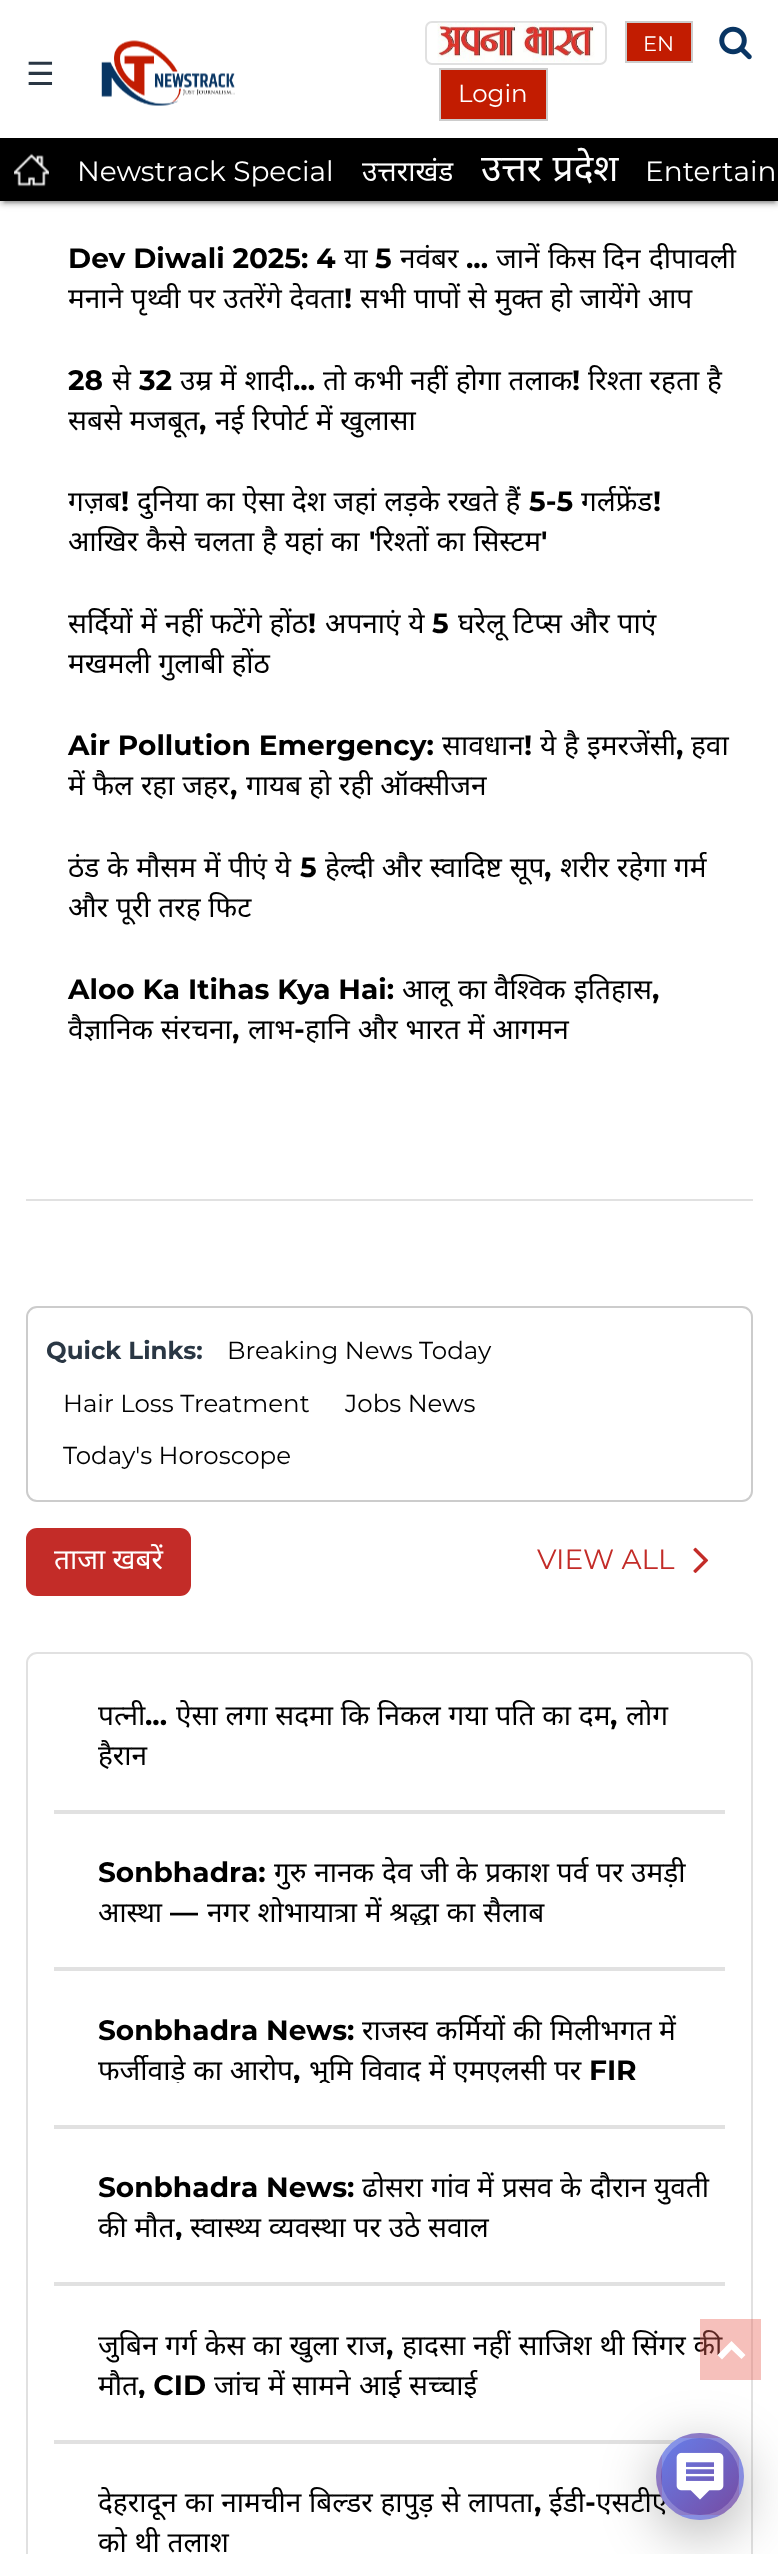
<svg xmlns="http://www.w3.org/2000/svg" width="778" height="2554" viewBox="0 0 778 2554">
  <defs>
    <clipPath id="clip1"><rect x="54" y="1855" width="671" height="70"/></clipPath>
    <clipPath id="clip2"><rect x="54" y="2013" width="671" height="70"/></clipPath>
    <clipPath id="clip3"><rect x="54" y="2170" width="671" height="70"/></clipPath>
    <clipPath id="clip4"><rect x="54" y="2328" width="671" height="70"/></clipPath>
    <clipPath id="clip5"><rect x="656" y="2433" width="88" height="87" rx="43.5"/></clipPath>
    <linearGradient id="g1" gradientUnits="userSpaceOnUse" x1="662" y1="2361" x2="739" y2="2438"><stop offset="0" stop-color="rgb(102,126,234)"/><stop offset="1" stop-color="rgb(118,75,162)"/></linearGradient>
    <linearGradient id="g2" gradientUnits="userSpaceOnUse" x1="585" y1="2438" x2="662" y2="2515"><stop offset="0" stop-color="rgb(102,126,234)"/><stop offset="1" stop-color="rgb(118,75,162)"/></linearGradient>
    <linearGradient id="g3" gradientUnits="userSpaceOnUse" x1="662" y1="2438" x2="739" y2="2515"><stop offset="0" stop-color="rgb(102,126,234)"/><stop offset="1" stop-color="rgb(118,75,162)"/></linearGradient>
    <linearGradient id="g4" gradientUnits="userSpaceOnUse" x1="739" y1="2438" x2="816" y2="2515"><stop offset="0" stop-color="rgb(102,126,234)"/><stop offset="1" stop-color="rgb(118,75,162)"/></linearGradient>
    <linearGradient id="g5" gradientUnits="userSpaceOnUse" x1="662" y1="2515" x2="739" y2="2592"><stop offset="0" stop-color="rgb(102,126,234)"/><stop offset="1" stop-color="rgb(118,75,162)"/></linearGradient>
  </defs>
  <rect width="100%" height="100%" fill="rgb(255,255,255)"/>
  <rect x="0" y="2" width="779" height="201" fill="rgba(0,0,0,0.12)" filter="blur(4.5px)"/>
  <rect x="4" y="9" width="771" height="194" fill="rgba(0,0,0,0.2)" filter="blur(1px)"/>
  <rect x="0" y="4" width="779" height="201" fill="rgba(0,0,0,0.14)" filter="blur(2px)"/>
  <rect x="0" y="0" width="778" height="138" fill="rgb(255,255,255)"/>
  <text x="26" y="85" font-family="DejaVu Sans" font-size="32" fill="rgb(42,55,68)">☰</text>
  <image x="101" y="40" width="134" height="66" href="pic1.png"/>
  <rect x="426" y="22" width="180" height="42" rx="6" fill="none" stroke="rgb(225,225,225)" stroke-width="2"/>
  <image x="437" y="22" width="158" height="40" href="pic2.png"/>
  <rect x="626" y="22" width="66" height="40" fill="rgb(194,28,1)" stroke="rgb(204,204,204)" stroke-width="2"/>
  <text x="643" y="51" font-family="Montserrat" font-size="21" fill="rgb(255,255,255)">EN</text>
  <image x="719" y="26" width="33" height="34" href="pic3.png"/>
  <rect x="440" y="69" width="107" height="51" fill="rgb(194,28,1)" stroke="rgb(204,204,204)" stroke-width="2"/>
  <text x="458" y="102" font-family="Montserrat" font-size="24.5" fill="rgb(255,255,255)">Login</text>
  <rect x="0" y="138" width="778" height="63" fill="rgb(0,0,0)"/>
  <image x="14" y="153" width="35" height="34" href="pic4.png"/>
  <text x="77" y="181" font-family="Montserrat" font-size="28" fill="rgb(255,255,255)">Newstrack Special</text>
  <text x="362" y="181" font-family="Noto Sans" font-size="28" fill="rgb(255,255,255)">उत्तराखंड</text>
  <text x="481" y="181" word-spacing="1" font-family="Noto Sans" font-size="37" fill="rgb(255,255,255)">उत्तर प्रदेश</text>
  <text x="645" y="181" font-family="Montserrat" font-size="28" fill="rgb(255,255,255)">Entertain</text>
  <rect x="26" y="1199" width="727" height="2" fill="rgb(225,225,225)"/>
  <text x="68" y="268" font-family="Montserrat" font-size="28" font-weight="bold" fill="rgb(0,0,0)">Dev Diwali 2025: 4</text>
  <text x="344" y="268" font-family="Noto Sans" font-size="28" fill="rgb(0,0,0)">या</text>
  <text x="375" y="268" font-family="Montserrat" font-size="28" font-weight="bold" fill="rgb(0,0,0)">5</text>
  <text x="400" y="268" font-family="Noto Sans" font-size="28" fill="rgb(0,0,0)">नवंबर</text>
  <text x="466" y="268" font-family="Montserrat" font-size="28" font-weight="bold" fill="rgb(0,0,0)">...</text>
  <g font-family="Noto Sans" font-size="28" fill="rgb(0,0,0)">
    <text x="496" y="268">जानें</text>
    <text x="548" y="268">किस</text>
    <text x="603" y="268">दिन</text>
    <text x="649" y="268">दीपावली</text>
    <text x="68" y="308" word-spacing="0.5">मनाने पृथ्वी पर उतरेंगे देवता</text>
  </g>
  <text x="344" y="308" font-family="Montserrat" font-size="28" font-weight="bold" fill="rgb(0,0,0)">!</text>
  <text x="360" y="308" word-spacing="0.5" font-family="Noto Sans" font-size="28" fill="rgb(0,0,0)">सभी पापों से मुक्त हो जायेंगे आप</text>
  <text x="68" y="390" font-family="Montserrat" font-size="28" font-weight="bold" fill="rgb(0,0,0)">28</text>
  <text x="112" y="390" font-family="Noto Sans" font-size="28" fill="rgb(0,0,0)">से</text>
  <text x="139" y="390" font-family="Montserrat" font-size="28" font-weight="bold" fill="rgb(0,0,0)">32</text>
  <text x="180" y="390" word-spacing="0.5" font-family="Noto Sans" font-size="28" fill="rgb(0,0,0)">उम्र में शादी</text>
  <text x="293" y="390" font-family="Montserrat" font-size="28" font-weight="bold" fill="rgb(0,0,0)">...</text>
  <text x="323" y="390" word-spacing="0.5" font-family="Noto Sans" font-size="28" fill="rgb(0,0,0)">तो कभी नहीं होगा तलाक</text>
  <text x="572" y="390" font-family="Montserrat" font-size="28" font-weight="bold" fill="rgb(0,0,0)">!</text>
  <g font-family="Noto Sans" font-size="28" fill="rgb(0,0,0)">
    <text x="588" y="390" word-spacing="0.5">रिश्ता रहता है</text>
    <text x="68" y="430" word-spacing="0.5">सबसे मजबूत</text>
  </g>
  <text x="199" y="430" font-family="Montserrat" font-size="28" font-weight="bold" fill="rgb(0,0,0)">,</text>
  <g font-family="Noto Sans" font-size="28" fill="rgb(0,0,0)">
    <text x="215" y="430" word-spacing="0.5">नई रिपोर्ट में खुलासा</text>
    <text x="68" y="511">गज़ब</text>
  </g>
  <text x="121" y="511" font-family="Montserrat" font-size="28" font-weight="bold" fill="rgb(0,0,0)">!</text>
  <text x="137" y="511" word-spacing="0.5" font-family="Noto Sans" font-size="28" fill="rgb(0,0,0)">दुनिया का ऐसा देश जहां लड़के रखते हैं</text>
  <text x="529" y="511" font-family="Montserrat" font-size="28" font-weight="bold" fill="rgb(0,0,0)">5-5</text>
  <text x="581" y="511" font-family="Noto Sans" font-size="28" fill="rgb(0,0,0)">गर्लफ्रेंड</text>
  <text x="653" y="511" font-family="Montserrat" font-size="28" font-weight="bold" fill="rgb(0,0,0)">!</text>
  <text x="68" y="551" word-spacing="0.5" font-family="Noto Sans" font-size="28" fill="rgb(0,0,0)">आखिर कैसे चलता है यहां का</text>
  <text x="369" y="551" font-family="Montserrat" font-size="28" font-weight="bold" fill="rgb(0,0,0)">'</text>
  <text x="375" y="551" word-spacing="0.5" font-family="Noto Sans" font-size="28" fill="rgb(0,0,0)">रिश्तों का सिस्टम</text>
  <text x="541" y="551" font-family="Montserrat" font-size="28" font-weight="bold" fill="rgb(0,0,0)">'</text>
  <text x="68" y="633" word-spacing="0.5" font-family="Noto Sans" font-size="28" fill="rgb(0,0,0)">सर्दियों में नहीं फटेंगे होंठ</text>
  <text x="308" y="633" font-family="Montserrat" font-size="28" font-weight="bold" fill="rgb(0,0,0)">!</text>
  <text x="325" y="633" word-spacing="0.5" font-family="Noto Sans" font-size="28" fill="rgb(0,0,0)">अपनाएं ये</text>
  <text x="432" y="633" font-family="Montserrat" font-size="28" font-weight="bold" fill="rgb(0,0,0)">5</text>
  <g font-family="Noto Sans" font-size="28" fill="rgb(0,0,0)">
    <text x="458" y="633" word-spacing="0.5">घरेलू टिप्स और पाएं</text>
    <text x="68" y="673" word-spacing="0.5">मखमली गुलाबी होंठ</text>
  </g>
  <g font-family="Montserrat" font-size="28" font-weight="bold" fill="rgb(0,0,0)">
    <text x="68" y="755">Air Pollution Emergency:</text>
    <text x="524" y="755">!</text>
  </g>
  <g font-family="Noto Sans" font-size="28" fill="rgb(0,0,0)">
    <text x="540" y="755">ये</text>
    <text x="564" y="755">है</text>
    <text x="587" y="755">इमरजेंसी</text>
    <text x="442" y="755">सावधान</text>
  </g>
  <text x="676" y="755" font-family="Montserrat" font-size="28" font-weight="bold" fill="rgb(0,0,0)">,</text>
  <g font-family="Noto Sans" font-size="28" fill="rgb(0,0,0)">
    <text x="691" y="755">हवा</text>
    <text x="68" y="795" word-spacing="0.5">में फैल रहा जहर</text>
  </g>
  <text x="230" y="795" font-family="Montserrat" font-size="28" font-weight="bold" fill="rgb(0,0,0)">,</text>
  <g font-family="Noto Sans" font-size="28" fill="rgb(0,0,0)">
    <text x="246" y="795" word-spacing="0.5">गायब हो रही ऑक्सीजन</text>
    <text x="68" y="877" word-spacing="0.5">ठंड के मौसम में पीएं ये</text>
  </g>
  <text x="300" y="877" font-family="Montserrat" font-size="28" font-weight="bold" fill="rgb(0,0,0)">5</text>
  <text x="325" y="877" word-spacing="0.5" font-family="Noto Sans" font-size="28" fill="rgb(0,0,0)">हेल्दी और स्वादिष्ट सूप</text>
  <text x="544" y="877" font-family="Montserrat" font-size="28" font-weight="bold" fill="rgb(0,0,0)">,</text>
  <g font-family="Noto Sans" font-size="28" fill="rgb(0,0,0)">
    <text x="560" y="877" word-spacing="0.5">शरीर रहेगा गर्म</text>
    <text x="68" y="917" word-spacing="0.5">और पूरी तरह फिट</text>
  </g>
  <text x="68" y="999" font-family="Montserrat" font-size="28" font-weight="bold" fill="rgb(0,0,0)">Aloo Ka Itihas Kya Hai:</text>
  <g font-family="Noto Sans" font-size="28" fill="rgb(0,0,0)">
    <text x="402" y="999">आलू</text>
    <text x="458" y="999">का</text>
    <text x="494" y="999">वैश्विक</text>
    <text x="574" y="999">इतिहास</text>
  </g>
  <text x="652" y="999" font-family="Montserrat" font-size="28" font-weight="bold" fill="rgb(0,0,0)">,</text>
  <g font-family="Noto Sans" font-size="28" fill="rgb(0,0,0)">
    <text x="68" y="1039" word-spacing="0.5">वैज्ञानिक संरचना</text>
    <text x="248" y="1039">लाभ</text>
  </g>
  <text x="294" y="1039" font-family="Montserrat" font-size="28" font-weight="bold" fill="rgb(0,0,0)">-</text>
  <text x="305" y="1039" word-spacing="0.5" font-family="Noto Sans" font-size="28" fill="rgb(0,0,0)">हानि और भारत में आगमन</text>
  <text x="232" y="1039" font-family="Montserrat" font-size="28" font-weight="bold" fill="rgb(0,0,0)">,</text>
  <rect x="27" y="1307" width="725" height="194" rx="10" fill="none" stroke="rgb(204,204,204)" stroke-width="2"/>
  <text x="46" y="1359" font-family="Montserrat" font-size="24.5" font-weight="bold" fill="rgb(42,55,68)">Quick Links:</text>
  <g font-family="Montserrat" font-size="24.5" fill="rgb(0,0,0)">
    <text x="227" y="1359">Breaking News Today</text>
    <text x="63" y="1412">Hair Loss Treatment</text>
    <text x="345" y="1412">Jobs News</text>
    <text x="63" y="1464">Today's Horoscope</text>
  </g>
  <rect x="26" y="1528" width="165" height="68" rx="11" fill="rgb(195,44,40)"/>
  <text x="54" y="1569" font-family="Noto Sans" font-size="28" fill="rgb(255,255,255)">ताजा खबरें</text>
  <text x="537" y="1569" font-family="Montserrat" font-size="28" fill="rgb(195,44,40)">VIEW ALL</text>
  <image x="693" y="1547" width="16" height="26" href="pic5.png"/>
  <rect x="27" y="1653" width="725" height="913" rx="10" fill="none" stroke="rgb(225,225,225)" stroke-width="2"/>
  <rect x="54" y="1810" width="671" height="4" fill="rgb(225,225,225)"/>
  <text x="98" y="1725" font-family="Noto Sans" font-size="28" fill="rgb(0,0,0)">पत्नी</text>
  <text x="145" y="1725" font-family="Montserrat" font-size="28" font-weight="bold" fill="rgb(0,0,0)">...</text>
  <text x="176" y="1725" word-spacing="0.5" font-family="Noto Sans" font-size="28" fill="rgb(0,0,0)">ऐसा लगा सदमा कि निकल गया पति का दम</text>
  <text x="610" y="1725" font-family="Montserrat" font-size="28" font-weight="bold" fill="rgb(0,0,0)">,</text>
  <g font-family="Noto Sans" font-size="28" fill="rgb(0,0,0)">
    <text x="626" y="1725">लोग</text>
    <text x="98" y="1765">हैरान</text>
  </g>
  <rect x="54" y="1967" width="671" height="4" fill="rgb(225,225,225)"/>
  <text x="98" y="1882" font-family="Montserrat" font-size="28" font-weight="bold" fill="rgb(0,0,0)">Sonbhadra:</text>
  <g font-family="Noto Sans" font-size="28" fill="rgb(0,0,0)">
    <text x="274" y="1882" word-spacing="0.5">गुरु नानक देव जी के प्रकाश पर्व पर उमड़ी</text>
    <text x="98" y="1922">आस्था</text>
  </g>
  <text x="170" y="1922" font-family="Montserrat" font-size="28" font-weight="bold" fill="rgb(0,0,0)">—</text>
  <g clip-path="url(#clip1)">
    <text x="207" y="1922" word-spacing="0.5" font-family="Noto Sans" font-size="28" fill="rgb(0,0,0)">नगर शोभायात्रा में श्रद्धा का सैलाब</text>
  </g>
  <rect x="54" y="2125" width="671" height="4" fill="rgb(225,225,225)"/>
  <text x="98" y="2040" font-family="Montserrat" font-size="28" font-weight="bold" fill="rgb(0,0,0)">Sonbhadra News:</text>
  <g font-family="Noto Sans" font-size="28" fill="rgb(0,0,0)">
    <text x="362" y="2040">राजस्व</text>
    <text x="436" y="2040">कर्मियों</text>
    <text x="513" y="2040">की</text>
    <text x="550" y="2040">मिलीभगत</text>
    <text x="659" y="2040">में</text>
  </g>
  <g clip-path="url(#clip2)">
    <text x="98" y="2080" word-spacing="0.5" font-family="Noto Sans" font-size="28" fill="rgb(0,0,0)">फर्जीवाड़े का आरोप</text>
    <text x="293" y="2080" font-family="Montserrat" font-size="28" font-weight="bold" fill="rgb(0,0,0)">,</text>
    <text x="309" y="2080" word-spacing="0.5" font-family="Noto Sans" font-size="28" fill="rgb(0,0,0)">भूमि विवाद में एमएलसी पर</text>
  </g>
  <text x="589" y="2080" font-family="Montserrat" font-size="28" font-weight="bold" fill="rgb(0,0,0)">FIR</text>
  <rect x="54" y="2282" width="671" height="4" fill="rgb(225,225,225)"/>
  <text x="98" y="2197" font-family="Montserrat" font-size="28" font-weight="bold" fill="rgb(0,0,0)">Sonbhadra News:</text>
  <g font-family="Noto Sans" font-size="28" fill="rgb(0,0,0)">
    <text x="362" y="2197">ढोसरा</text>
    <text x="431" y="2197">गांव</text>
    <text x="477" y="2197">में</text>
    <text x="502" y="2197">प्रसव</text>
    <text x="560" y="2197">के</text>
    <text x="590" y="2197">दौरान</text>
    <text x="654" y="2197">युवती</text>
    <text x="98" y="2237" word-spacing="0.5">की मौत</text>
  </g>
  <g clip-path="url(#clip3)">
    <text x="175" y="2237" font-family="Montserrat" font-size="28" font-weight="bold" fill="rgb(0,0,0)">,</text>
  </g>
  <text x="190" y="2237" word-spacing="0.5" font-family="Noto Sans" font-size="28" fill="rgb(0,0,0)">स्वास्थ्य व्यवस्था पर उठे सवाल</text>
  <rect x="54" y="2440" width="671" height="4" fill="rgb(225,225,225)"/>
  <text x="98" y="2355" word-spacing="0.5" font-family="Noto Sans" font-size="28" fill="rgb(0,0,0)">जुबिन गर्ग केस का खुला राज</text>
  <text x="386" y="2355" font-family="Montserrat" font-size="28" font-weight="bold" fill="rgb(0,0,0)">,</text>
  <g font-family="Noto Sans" font-size="28" fill="rgb(0,0,0)">
    <text x="402" y="2355" word-spacing="0.5">हादसा नहीं साजिश थी सिंगर की</text>
    <text x="98" y="2395">मौत</text>
  </g>
  <g clip-path="url(#clip4)">
    <text x="138" y="2395" font-family="Montserrat" font-size="28" font-weight="bold" fill="rgb(0,0,0)">, CID</text>
  </g>
  <g font-family="Noto Sans" font-size="28" fill="rgb(0,0,0)">
    <text x="214" y="2395">जांच</text>
    <text x="268" y="2395">में</text>
    <text x="292" y="2395">सामने</text>
  </g>
  <g clip-path="url(#clip4)">
    <g font-family="Noto Sans" font-size="28" fill="rgb(0,0,0)">
      <text x="359" y="2395">आई</text>
      <text x="409" y="2395">सच्चाई</text>
    </g>
  </g>
  <g font-family="Noto Sans" font-size="28" fill="rgb(0,0,0)">
    <text x="98" y="2512" word-spacing="0.5">देहरादून का नामचीन बिल्डर हापुड़ से लापता</text>
    <text x="549" y="2512">ईडी</text>
  </g>
  <text x="585" y="2512" font-family="Montserrat" font-size="28" font-weight="bold" fill="rgb(0,0,0)">-</text>
  <text x="596" y="2512" font-family="Noto Sans" font-size="28" fill="rgb(0,0,0)">एसटीए</text>
  <text x="534" y="2512" font-family="Montserrat" font-size="28" font-weight="bold" fill="rgb(0,0,0)">,</text>
  <text x="98" y="2552" word-spacing="0.5" font-family="Noto Sans" font-size="28" fill="rgb(0,0,0)">को थी तलाश</text>
  <rect x="700" y="2319" width="61" height="61" fill="rgba(232,98,86,0.4)"/>
  <path d="M731.5 2341L745.5 2355L741.5 2359L731.5 2349.5L722 2359.5L717.5 2355Z" fill="rgb(255,255,255)"/>
  <rect x="656" y="2447" width="88" height="87" rx="43.5" fill="rgba(0,0,0,0.3)" filter="blur(28px)"/>
  <g clip-path="url(#clip5)">
    <rect x="679" y="2433" width="42" height="5" fill="url(#g1)"/>
    <rect x="656" y="2454" width="6" height="45" fill="url(#g2)"/>
    <rect x="662" y="2438" width="77" height="77" fill="url(#g3)"/>
    <rect x="739" y="2456" width="5" height="41" fill="url(#g4)"/>
    <rect x="679" y="2515" width="42" height="5" fill="url(#g5)"/>
  </g>
  <rect x="658.5" y="2435.5" width="83" height="82" rx="41" fill="none" stroke="rgba(255,255,255,0.2)" stroke-width="5"/>
  <image x="676" y="2452" width="48" height="48" href="pic6.png"/>
</svg>
